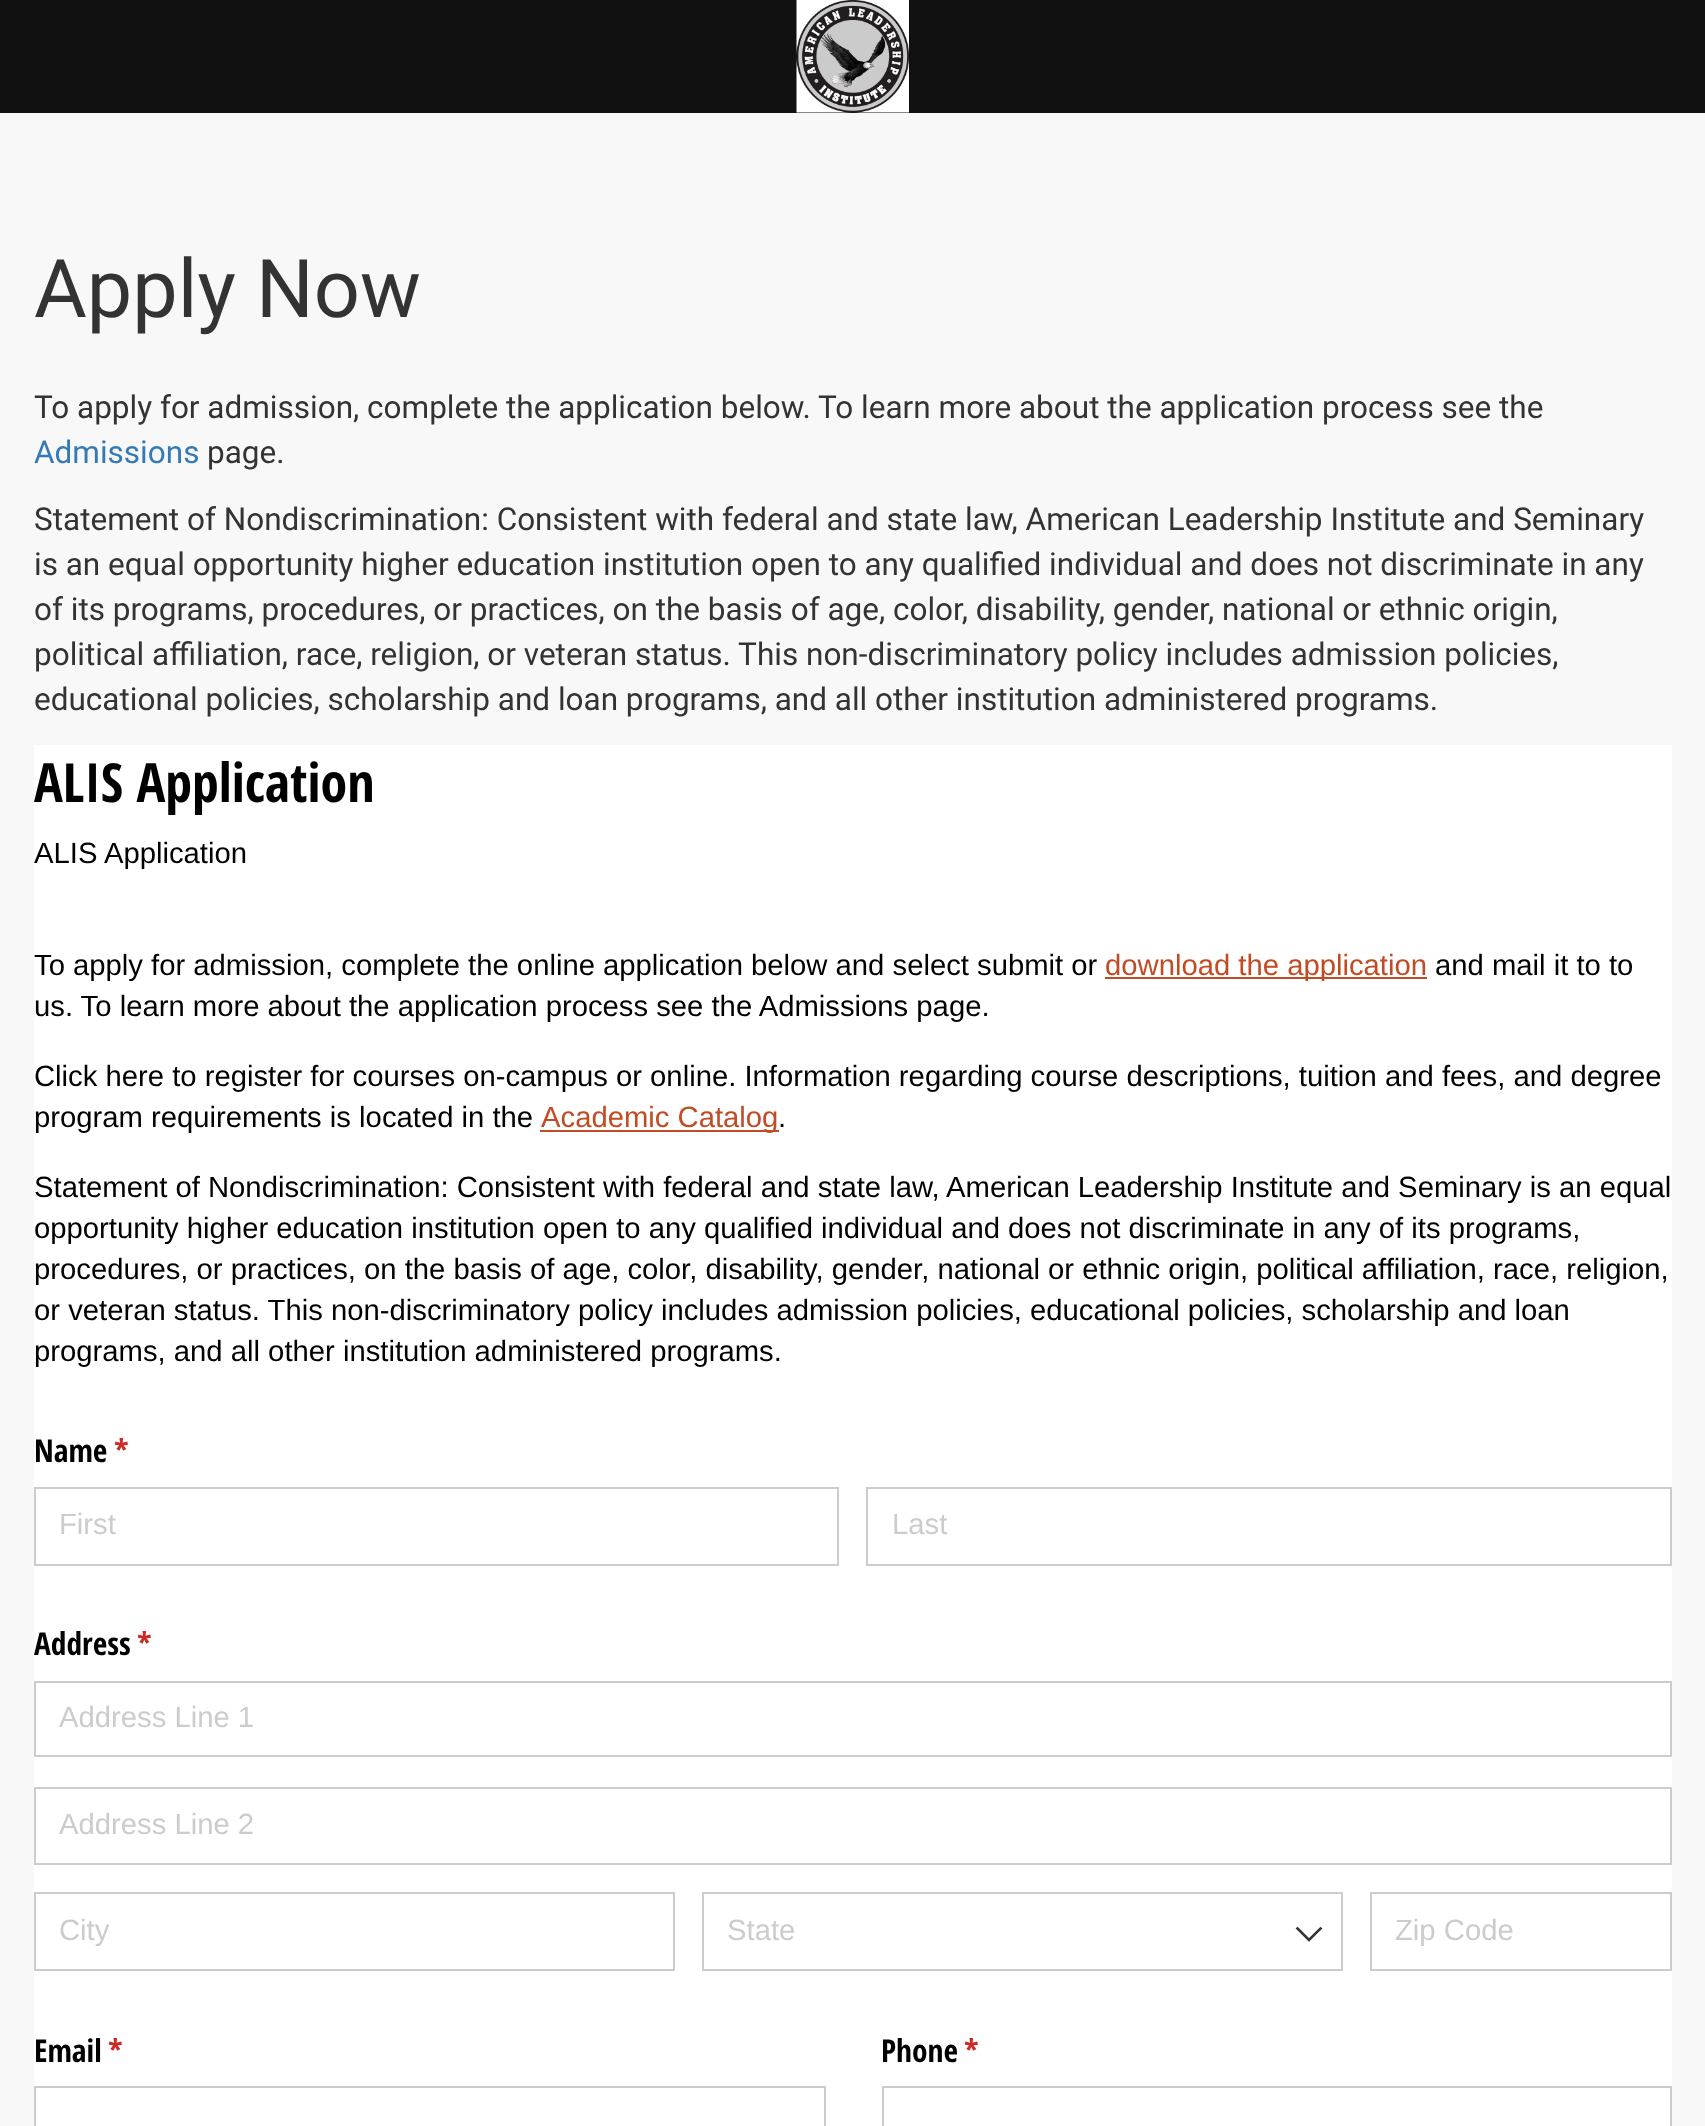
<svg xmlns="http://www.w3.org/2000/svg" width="1705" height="2126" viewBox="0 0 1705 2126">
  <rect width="100%" height="100%" fill="rgb(248,248,248)"/>
  <rect x="0" y="0" width="1705" height="113" fill="rgb(17,17,17)"/>
  <image x="796" y="0" width="113" height="113" href="pic1.png"/>
  <text x="34" y="317" font-family="Roboto" font-size="81" fill="rgb(51,51,51)">Apply Now</text>
  <text x="34" y="418" font-family="Roboto" font-size="31.5" fill="rgb(51,51,51)">To apply for admission, complete the application below. To learn more about the application process see the</text>
  <text x="34" y="463" font-family="Roboto" font-size="31.5" fill="rgb(51,122,183)">Admissions</text>
  <g font-family="Roboto" font-size="31.5" fill="rgb(51,51,51)">
    <text x="207" y="463">page.</text>
    <text>
      <tspan x="34" y="530">Statement of Nondiscrimination: Consistent with federal and state law, American Leadership Institute and Seminary</tspan>
      <tspan x="34" y="575">is an equal opportunity higher education institution open to any qualified individual and does not discriminate in any</tspan>
      <tspan x="34" y="620">of its programs, procedures, or practices, on the basis of age, color, disability, gender, national or ethnic origin,</tspan>
      <tspan x="34" y="665">political affiliation, race, religion, or veteran status. This non-discriminatory policy includes admission policies,</tspan>
      <tspan x="34" y="710">educational policies, scholarship and loan programs, and all other institution administered programs.</tspan>
    </text>
  </g>
  <rect x="34" y="745" width="1638" height="1381" fill="rgb(255,255,255)"/>
  <text x="34" y="802" font-family="Open Sans Condensed" font-size="54" font-weight="bold" fill="rgb(0,0,0)">ALIS Application</text>
  <g font-family="Liberation Sans" font-size="29.25" fill="rgb(0,0,0)">
    <text x="34" y="863">ALIS Application</text>
    <text x="34" y="975">To apply for admission, complete the online application below and select submit or</text>
  </g>
  <rect x="1105" y="977" width="322" height="2" fill="rgb(194,75,35)"/>
  <text x="1105" y="975" font-family="Liberation Sans" font-size="29.25" fill="rgb(194,75,35)">download the application</text>
  <g font-family="Liberation Sans" font-size="29.25" fill="rgb(0,0,0)">
    <text x="1435" y="975">and mail it to to</text>
    <text x="34" y="1016">us. To learn more about the application process see the Admissions page.</text>
    <text>
      <tspan x="34" y="1086">Click here to register for courses on-campus or online. Information regarding course descriptions, tuition and fees, and degree</tspan>
      <tspan x="34" y="1127">program requirements is located in the</tspan>
    </text>
  </g>
  <rect x="540" y="1130" width="239" height="2" fill="rgb(194,75,35)"/>
  <text x="541" y="1127" font-family="Liberation Sans" font-size="29.25" fill="rgb(194,75,35)">Academic Catalog</text>
  <g font-family="Liberation Sans" font-size="29.25" fill="rgb(0,0,0)">
    <text x="778" y="1127">.</text>
    <text>
      <tspan x="34" y="1197">Statement of Nondiscrimination: Consistent with federal and state law, American Leadership Institute and Seminary is an equal</tspan>
      <tspan x="34" y="1238">opportunity higher education institution open to any qualified individual and does not discriminate in any of its programs,</tspan>
      <tspan x="34" y="1279">procedures, or practices, on the basis of age, color, disability, gender, national or ethnic origin, political affiliation, race, religion,</tspan>
      <tspan x="34" y="1320">or veteran status. This non-discriminatory policy includes admission policies, educational policies, scholarship and loan</tspan>
      <tspan x="34" y="1361">programs, and all other institution administered programs.</tspan>
    </text>
  </g>
  <text x="34" y="1462" font-family="Open Sans Condensed" font-size="31.5" font-weight="bold" fill="rgb(0,0,0)">Name</text>
  <text x="114" y="1462" font-family="Open Sans Condensed" font-size="31.5" font-weight="bold" fill="rgb(204,42,36)">*</text>
  <rect x="35" y="1488" width="803" height="77" fill="none" stroke="rgb(204,204,204)" stroke-width="2"/>
  <text x="59" y="1534" font-family="Liberation Sans" font-size="29.25" fill="rgb(204,204,204)">First</text>
  <rect x="867" y="1488" width="804" height="77" fill="none" stroke="rgb(204,204,204)" stroke-width="2"/>
  <text x="892" y="1534" font-family="Liberation Sans" font-size="29.25" fill="rgb(204,204,204)">Last</text>
  <text x="34" y="1655" font-family="Open Sans Condensed" font-size="31.5" font-weight="bold" fill="rgb(0,0,0)">Address</text>
  <text x="137" y="1655" font-family="Open Sans Condensed" font-size="31.5" font-weight="bold" fill="rgb(204,42,36)">*</text>
  <rect x="35" y="1682" width="1636" height="74" fill="none" stroke="rgb(204,204,204)" stroke-width="2"/>
  <text x="59" y="1727" font-family="Liberation Sans" font-size="29.25" fill="rgb(204,204,204)">Address Line 1</text>
  <rect x="35" y="1788" width="1636" height="76" fill="none" stroke="rgb(204,204,204)" stroke-width="2"/>
  <text x="59" y="1834" font-family="Liberation Sans" font-size="29.25" fill="rgb(204,204,204)">Address Line 2</text>
  <rect x="35" y="1893" width="639" height="77" fill="none" stroke="rgb(204,204,204)" stroke-width="2"/>
  <text x="59" y="1940" font-family="Liberation Sans" font-size="29.25" fill="rgb(204,204,204)">City</text>
  <rect x="703" y="1893" width="639" height="77" fill="none" stroke="rgb(204,204,204)" stroke-width="2"/>
  <text x="727" y="1940" font-family="Liberation Sans" font-size="29.25" fill="rgb(204,204,204)">State</text>
  <path d="M1297.5 1928.5L1309 1940L1320.5 1928.5" fill="none" stroke="rgb(51,51,51)" stroke-width="2.6" stroke-linecap="square"/>
  <rect x="1371" y="1893" width="300" height="77" fill="none" stroke="rgb(204,204,204)" stroke-width="2"/>
  <text x="1395" y="1940" font-family="Liberation Sans" font-size="29.25" fill="rgb(204,204,204)">Zip Code</text>
  <text x="34" y="2062" font-family="Open Sans Condensed" font-size="31.5" font-weight="bold" fill="rgb(0,0,0)">Email</text>
  <text x="108" y="2062" font-family="Open Sans Condensed" font-size="31.5" font-weight="bold" fill="rgb(204,42,36)">*</text>
  <rect x="35" y="2087" width="790" height="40" fill="none" stroke="rgb(204,204,204)" stroke-width="2"/>
  <text x="881" y="2062" font-family="Open Sans Condensed" font-size="31.5" font-weight="bold" fill="rgb(0,0,0)">Phone</text>
  <text x="964" y="2062" font-family="Open Sans Condensed" font-size="31.5" font-weight="bold" fill="rgb(204,42,36)">*</text>
  <rect x="883" y="2087" width="788" height="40" fill="none" stroke="rgb(204,204,204)" stroke-width="2"/>
</svg>
